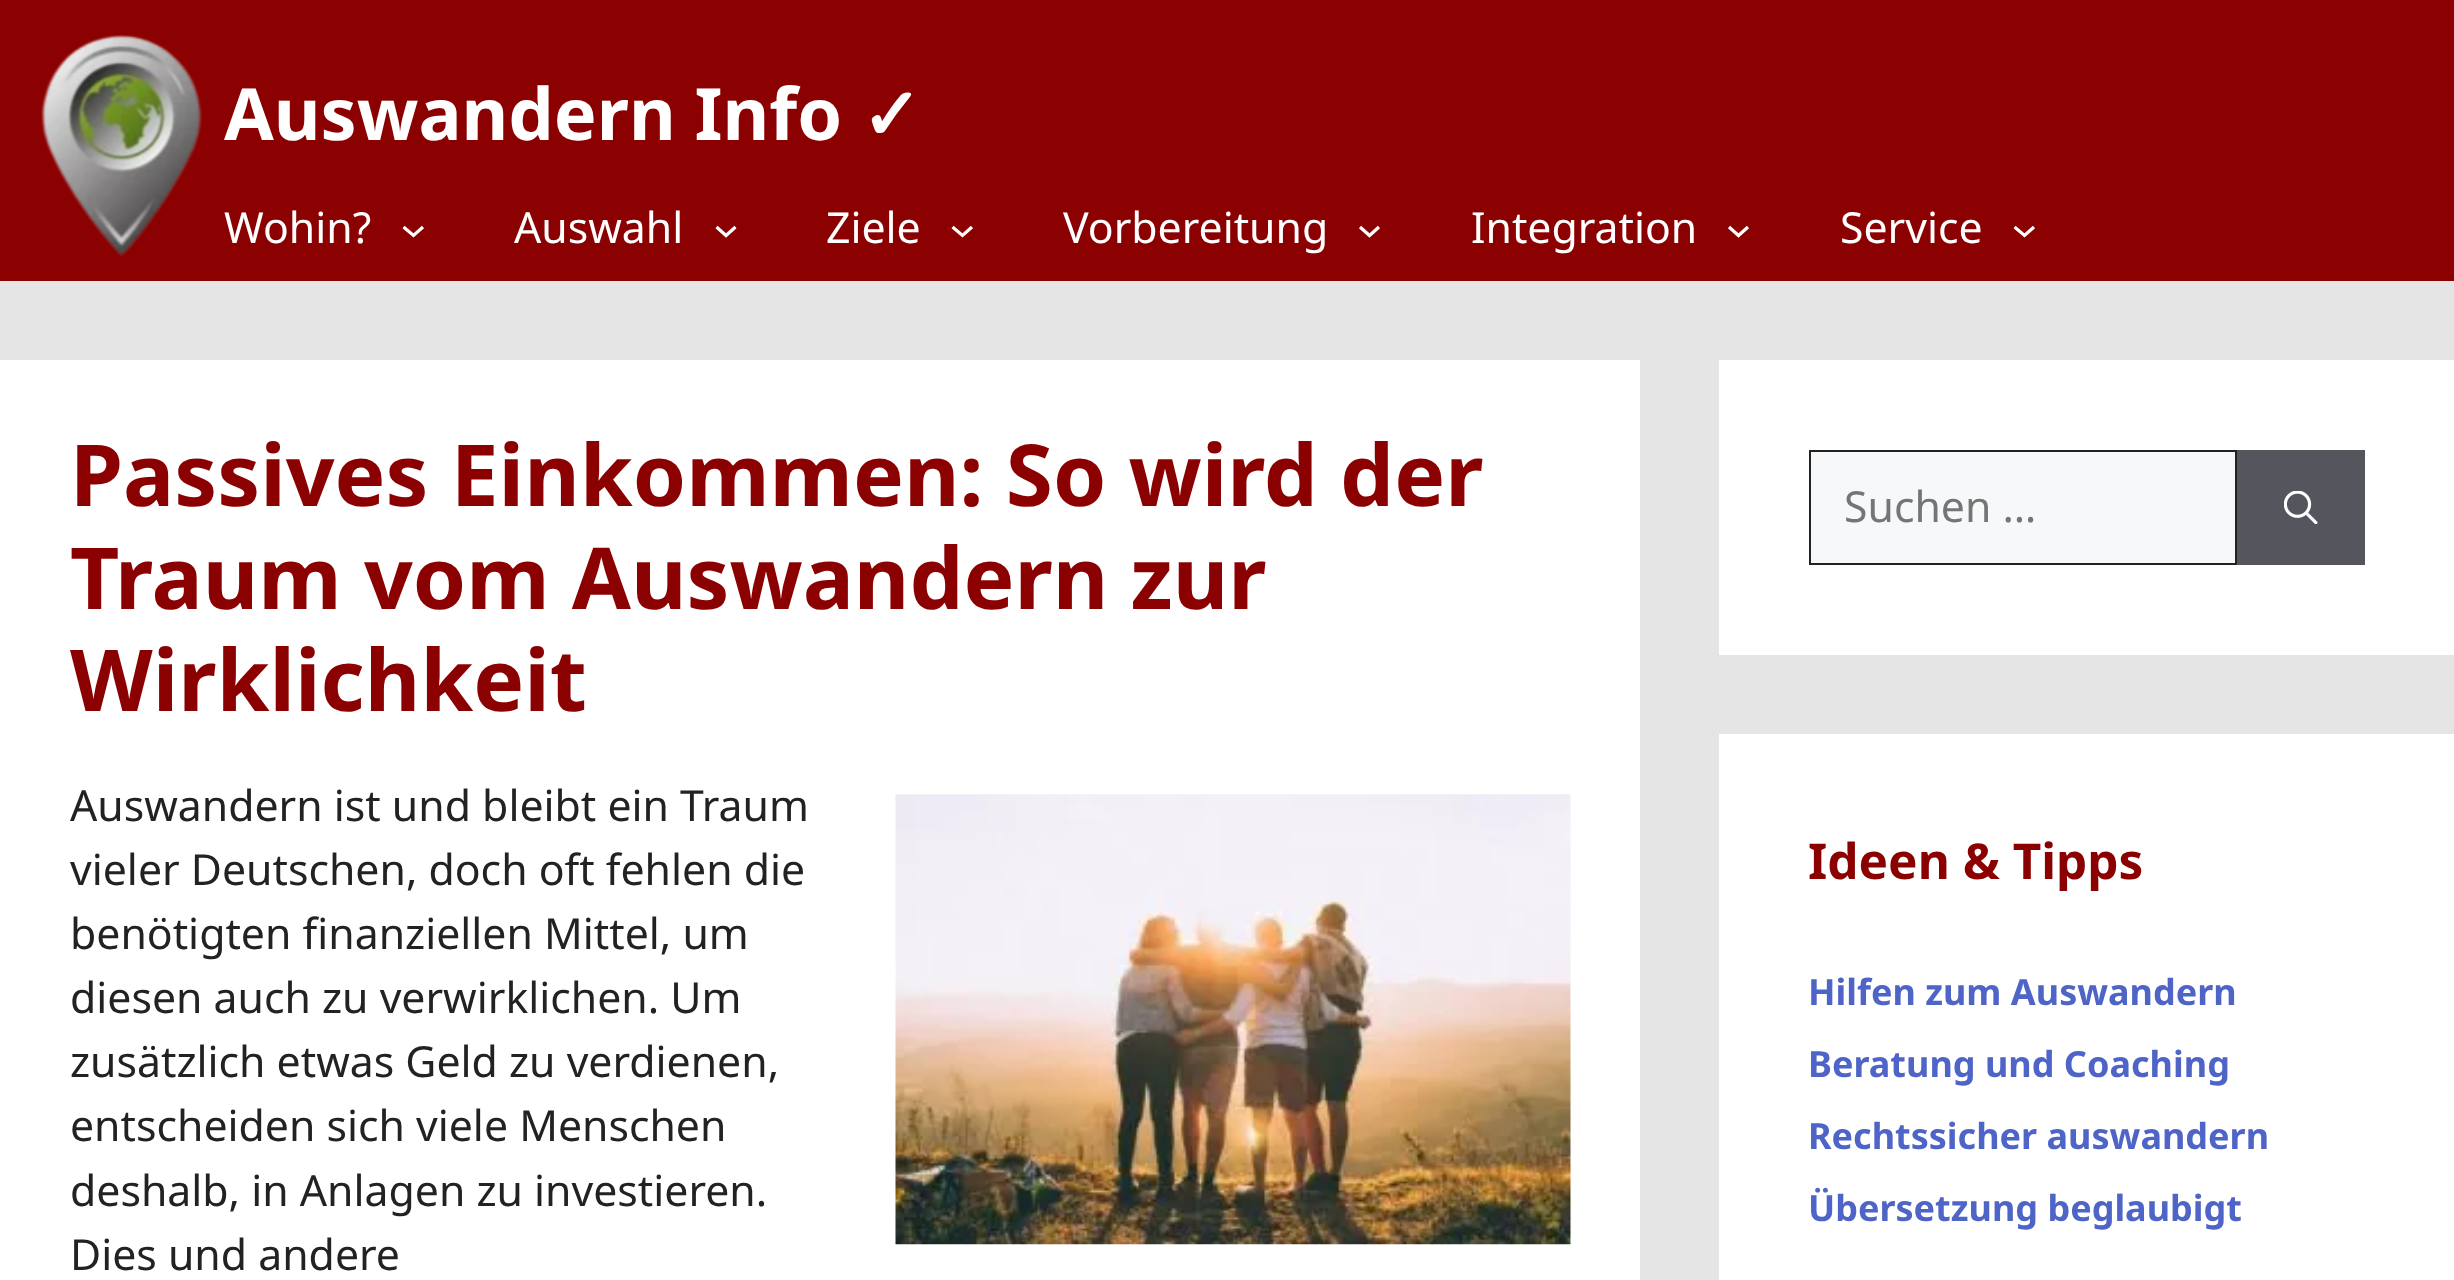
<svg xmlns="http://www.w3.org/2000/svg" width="2454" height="1280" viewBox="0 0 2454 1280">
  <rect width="100%" height="100%" fill="rgb(229,229,229)"/>
  <rect x="0" y="0" width="2454" height="281" fill="rgb(139,0,0)"/>
  <image x="41" y="35" width="161" height="222" href="pic1.png"/>
  <text x="224" y="140" font-family="Noto Sans" font-size="72" font-weight="bold" fill="rgb(255,255,255)">Auswandern Info</text>
  <text x="861" y="140" font-family="DejaVu Sans" font-size="72" font-weight="bold" fill="rgb(255,255,255)">✓</text>
  <text x="224" y="243" font-family="Noto Sans" font-size="42.75" fill="rgb(255,255,255)">Wohin?</text>
  <path d="M403.5 227L413.5 235.5L423 227" fill="none" stroke="rgb(255,255,255)" stroke-width="3.2"/>
  <text x="514" y="243" font-family="Noto Sans" font-size="42.75" fill="rgb(255,255,255)">Auswahl</text>
  <path d="M716.5 227L726 235.5L735.5 227" fill="none" stroke="rgb(255,255,255)" stroke-width="3.2"/>
  <text x="826" y="243" font-family="Noto Sans" font-size="42.75" fill="rgb(255,255,255)">Ziele</text>
  <path d="M952.5 227L962.5 235.5L972 227" fill="none" stroke="rgb(255,255,255)" stroke-width="3.2"/>
  <text x="1063" y="243" font-family="Noto Sans" font-size="42.75" fill="rgb(255,255,255)">Vorbereitung</text>
  <path d="M1360 227L1369.5 235.5L1379 227" fill="none" stroke="rgb(255,255,255)" stroke-width="3.2"/>
  <text x="1471" y="243" font-family="Noto Sans" font-size="42.75" fill="rgb(255,255,255)">Integration</text>
  <path d="M1729 227L1738.5 235.5L1748 227" fill="none" stroke="rgb(255,255,255)" stroke-width="3.2"/>
  <text x="1840" y="243" font-family="Noto Sans" font-size="42.75" fill="rgb(255,255,255)">Service</text>
  <path d="M2014.5 227L2024.5 235.5L2034 227" fill="none" stroke="rgb(255,255,255)" stroke-width="3.2"/>
  <rect x="0" y="360" width="1640" height="920" fill="rgb(255,255,255)"/>
  <g font-family="Noto Sans" font-size="85.5" font-weight="bold" fill="rgb(139,0,0)">
    <text>
      <tspan x="70" y="506">Passives Einkommen: So wird der</tspan>
      <tspan x="70" y="609">Traum vom Auswandern zur</tspan>
      <tspan x="70" y="711">Wirklichkeit</tspan>
    </text>
  </g>
  <g font-family="Noto Sans" font-size="42.75" fill="rgb(34,34,34)">
    <text>
      <tspan x="70" y="821">Auswandern ist und bleibt ein Traum</tspan>
      <tspan x="70" y="885">vieler Deutschen, doch oft fehlen die</tspan>
      <tspan x="70" y="949">benötigten finanziellen Mittel, um</tspan>
      <tspan x="70" y="1013">diesen auch zu verwirklichen. Um</tspan>
      <tspan x="70" y="1077">zusätzlich etwas Geld zu verdienen,</tspan>
      <tspan x="70" y="1141">entscheiden sich viele Menschen</tspan>
      <tspan x="70" y="1206">deshalb, in Anlagen zu investieren.</tspan>
      <tspan x="70" y="1270">Dies und andere</tspan>
    </text>
  </g>
  <image x="895" y="794" width="676" height="451" href="pic2.png"/>
  <rect x="1719" y="360" width="735" height="295" fill="rgb(255,255,255)"/>
  <rect x="1810" y="451" width="426" height="113" fill="rgb(247,248,249)" stroke="rgb(34,34,34)" stroke-width="2"/>
  <text x="1844" y="522" font-family="Noto Sans" font-size="42.75" fill="rgb(117,117,117)">Suchen …</text>
  <rect x="2237" y="450" width="128" height="115" fill="rgb(85,85,94)"/>
  <image x="2284" y="491" width="34" height="33" href="pic3.png"/>
  <rect x="1719" y="734" width="735" height="546" fill="rgb(255,255,255)"/>
  <text x="1808" y="879" font-family="Noto Sans" font-size="49.5" font-weight="bold" fill="rgb(139,0,0)">Ideen &amp; Tipps</text>
  <g font-family="Noto Sans" font-size="36" font-weight="bold" fill="rgb(78,100,199)">
    <text x="1808" y="1005">Hilfen zum Auswandern</text>
    <text x="1808" y="1077">Beratung und Coaching</text>
    <text x="1808" y="1149">Rechtssicher auswandern</text>
    <text x="1808" y="1221">Übersetzung beglaubigt</text>
  </g>
</svg>
